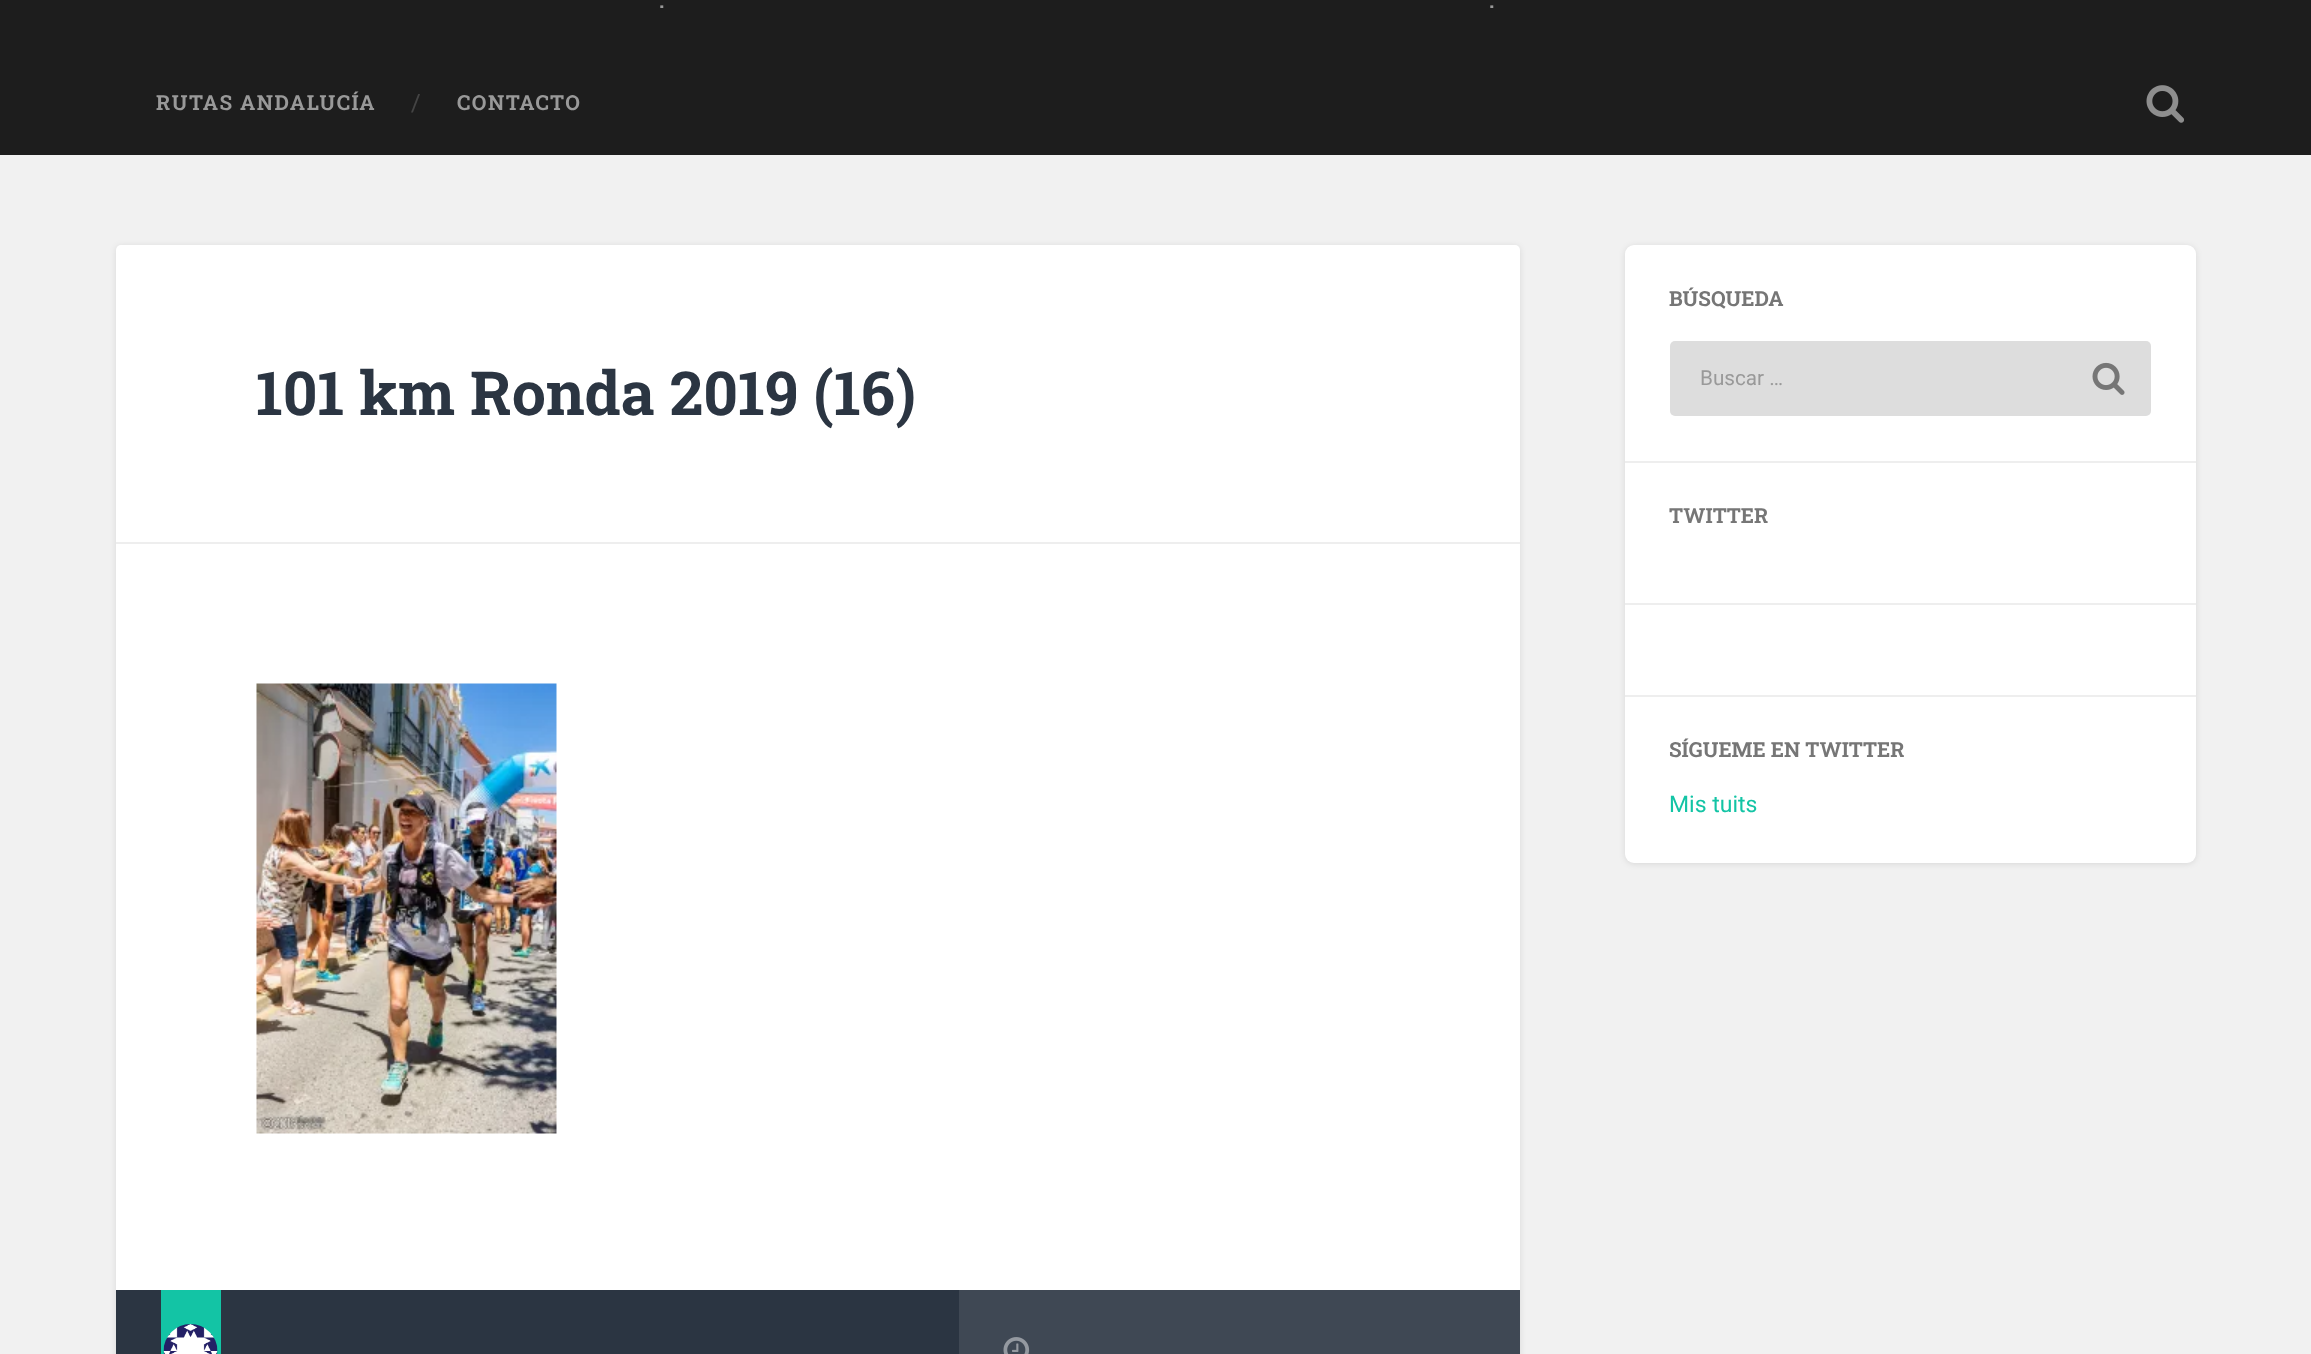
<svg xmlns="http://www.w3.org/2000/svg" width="2311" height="1354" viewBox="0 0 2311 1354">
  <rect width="100%" height="100%" fill="rgb(241,241,241)"/>
  <rect x="0" y="0" width="2311" height="155" fill="rgb(29,29,29)"/>
  <g font-family="Roboto Slab" font-size="20.7" font-weight="bold" letter-spacing="1.5" fill="rgb(153,153,153)">
    <text x="659" y="8">.</text>
    <text x="1489" y="8">.</text>
    <text x="156" y="110">RUTAS ANDALUCÍA</text>
  </g>
  <text x="411" y="111" font-family="Roboto Slab" font-size="24" fill="rgb(68,68,68)">/</text>
  <text x="457" y="110" font-family="Roboto Slab" font-size="20.7" font-weight="bold" letter-spacing="1.5" fill="rgb(153,153,153)">CONTACTO</text>
  <image x="2146" y="85" width="38" height="38" href="pic1.png"/>
  <rect x="116" y="246" width="1404" height="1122" rx="5" fill="rgba(0,0,0,0.1)" filter="blur(3px)"/>
  <rect x="116" y="245" width="1404" height="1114" rx="5" fill="rgb(255,255,255)"/>
  <rect x="116" y="542" width="1404" height="2" fill="rgb(238,238,238)"/>
  <text x="256" y="415" font-family="Roboto Slab" font-size="60.75" font-weight="bold" fill="rgb(43,53,66)">101 km Ronda 2019 (16)</text>
  <image x="256" y="683" width="301" height="451" href="pic2.png"/>
  <rect x="116" y="1290" width="843" height="64" fill="rgb(43,53,66)"/>
  <rect x="161" y="1290" width="60" height="64" fill="rgb(19,196,165)"/>
  <image x="163" y="1324" width="55" height="30" href="pic3.png"/>
  <rect x="959" y="1290" width="561" height="64" fill="rgb(63,72,84)"/>
  <image x="1003" y="1337" width="27" height="17" href="pic4.png"/>
  <rect x="1625" y="246" width="571" height="618" rx="9" fill="rgba(0,0,0,0.1)" filter="blur(3px)"/>
  <rect x="1625" y="245" width="571" height="618" rx="9" fill="rgb(255,255,255)"/>
  <text x="1669" y="306" font-family="Roboto Slab" font-size="20.7" font-weight="bold" fill="rgb(118,118,118)">BÚSQUEDA</text>
  <rect x="1670" y="341" width="481" height="75" rx="5" fill="rgb(221,221,221)"/>
  <text x="1700" y="385" font-family="Roboto" font-size="20.7" fill="rgb(153,153,153)">Buscar …</text>
  <image x="2092" y="362" width="33" height="33" href="pic5.png"/>
  <rect x="1625" y="461" width="571" height="2" fill="rgb(238,238,238)"/>
  <text x="1669" y="523" font-family="Roboto Slab" font-size="20.7" font-weight="bold" fill="rgb(118,118,118)">TWITTER</text>
  <rect x="1625" y="603" width="571" height="2" fill="rgb(238,238,238)"/>
  <rect x="1625" y="695" width="571" height="2" fill="rgb(238,238,238)"/>
  <text x="1669" y="757" font-family="Roboto Slab" font-size="20.7" font-weight="bold" fill="rgb(118,118,118)">SÍGUEME EN TWITTER</text>
  <text x="1669" y="812" font-family="Roboto" font-size="23" fill="rgb(19,196,165)">Mis tuits</text>
</svg>
